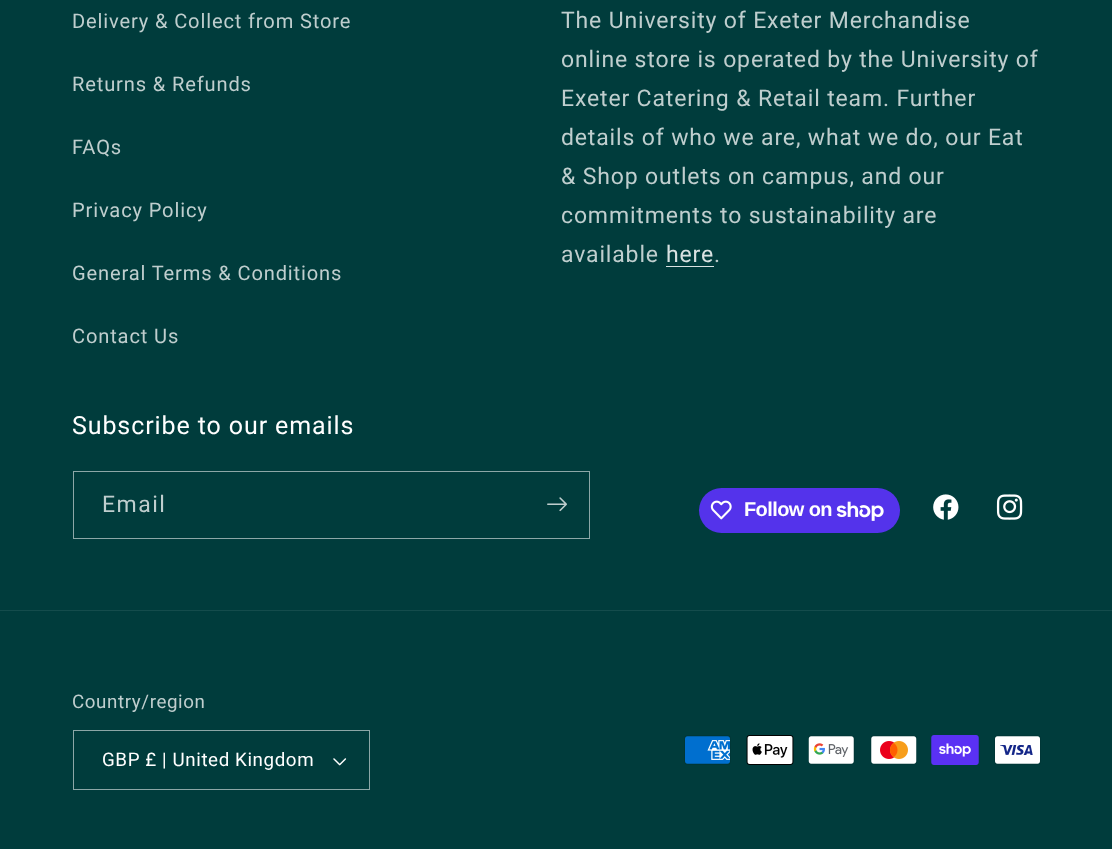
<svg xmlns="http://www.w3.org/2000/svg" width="1112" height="849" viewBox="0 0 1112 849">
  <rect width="100%" height="100%" fill="rgb(0,60,60)"/>
  <g font-family="Roboto" font-size="20.1" letter-spacing="0.85" fill="rgb(191,206,206)">
    <text x="72" y="28">Delivery &amp; Collect from Store</text>
    <text x="72" y="91">Returns &amp; Refunds</text>
    <text x="72" y="154">FAQs</text>
    <text x="72" y="217">Privacy Policy</text>
    <text x="72" y="280">General Terms &amp; Conditions</text>
    <text x="72" y="343">Contact Us</text>
  </g>
  <g font-family="Roboto" font-size="23" letter-spacing="0.85" fill="rgb(191,206,206)">
    <text>
      <tspan x="561" y="28">The University of Exeter Merchandise</tspan>
      <tspan x="561" y="67">online store is operated by the University of</tspan>
      <tspan x="561" y="106">Exeter Catering &amp; Retail team. Further</tspan>
      <tspan x="561" y="145">details of who we are, what we do, our Eat</tspan>
      <tspan x="561" y="184">&amp; Shop outlets on campus, and our</tspan>
      <tspan x="561" y="223">commitments to sustainability are</tspan>
      <tspan x="561" y="262">available</tspan>
    </text>
  </g>
  <text x="666" y="262" font-family="Roboto" font-size="23" letter-spacing="0.85" fill="rgb(217,226,226)">here</text>
  <rect x="666" y="266" width="48" height="1" fill="rgb(217,226,226)"/>
  <text x="714" y="262" font-family="Roboto" font-size="23" letter-spacing="0.85" fill="rgb(191,206,206)">.</text>
  <text x="72" y="434" font-family="Roboto" font-size="25" letter-spacing="0.9" fill="rgb(255,255,255)">Subscribe to our emails</text>
  <rect x="73.5" y="471.5" width="516" height="67" fill="none" stroke="rgb(140,167,167)"/>
  <text x="102" y="512" font-family="Roboto" font-size="23" letter-spacing="1.5" fill="rgb(191,206,206)">Email</text>
  <image x="547" y="497" width="20" height="15" href="pic1.png"/>
  <rect x="699" y="488" width="201" height="45" rx="22.5" fill="rgb(84,51,235)"/>
  <image x="710" y="500" width="22" height="20" href="pic2.png"/>
  <text x="744" y="516" font-family="Liberation Sans" font-size="20" font-weight="bold" letter-spacing="-0.6" fill="rgb(255,255,255)">Follow on</text>
  <image x="836" y="501" width="48" height="20" href="pic3.png"/>
  <image x="933" y="494" width="26" height="26" href="pic4.png"/>
  <image x="996" y="494" width="27" height="26" href="pic5.png"/>
  <rect x="0" y="610" width="1112" height="1" fill="rgb(20,76,76)"/>
  <text x="72" y="708" font-family="Roboto" font-size="18.75" letter-spacing="0.6" fill="rgb(191,206,206)">Country/region</text>
  <image x="333" y="758" width="14" height="8" href="pic6.png"/>
  <rect x="73.5" y="730.5" width="296" height="59" fill="none" stroke="rgb(140,167,167)"/>
  <text x="102" y="766" font-family="Roboto" font-size="18.75" letter-spacing="0.6" fill="rgb(255,255,255)">GBP £ | United Kingdom</text>
  <image x="684" y="735" width="47" height="30" href="pic7.png"/>
  <image x="746" y="735" width="48" height="30" href="pic8.png"/>
  <image x="808" y="735" width="47" height="30" href="pic9.png"/>
  <image x="870" y="735" width="47" height="30" href="pic10.png"/>
  <image x="931" y="735" width="48" height="30" href="pic11.png"/>
  <image x="994" y="735" width="47" height="30" href="pic12.png"/>
</svg>
